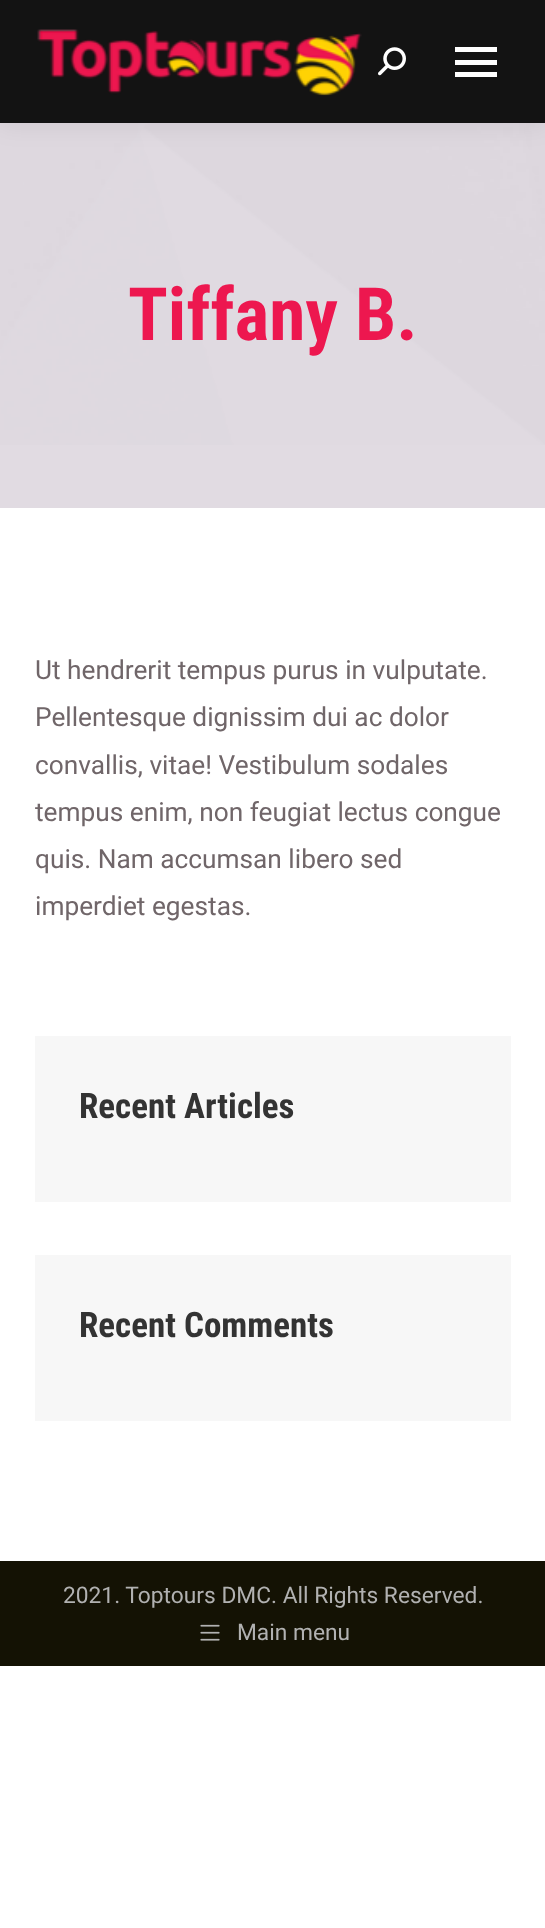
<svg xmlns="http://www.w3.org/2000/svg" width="545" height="1928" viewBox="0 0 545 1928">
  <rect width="100%" height="100%" fill="rgb(255,255,255)"/>
  <rect x="0" y="123" width="545" height="385" fill="rgb(225,219,226)"/>
  <image x="0" y="123" width="545" height="322" href="pic3.png"/>
  <rect x="-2" y="-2" width="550" height="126" fill="rgba(0,0,0,0.07)" filter="blur(13px)"/>
  <rect x="0" y="0" width="545" height="123" fill="rgb(19,19,19)"/>
  <image x="37" y="29" width="325" height="67" href="pic1.png"/>
  <image x="378" y="47" width="28" height="29" href="pic2.png"/>
  <rect x="455" y="47" width="42" height="5" fill="rgb(255,255,255)"/>
  <rect x="455" y="60" width="42" height="5" fill="rgb(255,255,255)"/>
  <rect x="455" y="72" width="42" height="5" fill="rgb(255,255,255)"/>
  <text x="128" y="340" font-family="Roboto Condensed" font-size="73.5" font-weight="bold" fill="rgb(237,23,79)">Tiffany B.</text>
  <g font-family="Roboto" font-size="26.25" fill="rgb(112,102,105)">
    <text>
      <tspan x="35" y="679">Ut hendrerit tempus purus in vulputate.</tspan>
      <tspan x="35" y="726">Pellentesque dignissim dui ac dolor</tspan>
      <tspan x="35" y="774">convallis, vitae! Vestibulum sodales</tspan>
      <tspan x="35" y="821">tempus enim, non feugiat lectus congue</tspan>
      <tspan x="35" y="868">quis. Nam accumsan libero sed</tspan>
      <tspan x="35" y="915">imperdiet egestas.</tspan>
    </text>
  </g>
  <rect x="35" y="1036" width="476" height="166" fill="rgb(247,247,247)"/>
  <text x="79" y="1118" font-family="Roboto Condensed" font-size="35" font-weight="bold" fill="rgb(51,51,51)">Recent Articles</text>
  <rect x="35" y="1255" width="476" height="166" fill="rgb(247,247,247)"/>
  <text x="79" y="1337" font-family="Roboto Condensed" font-size="35" font-weight="bold" fill="rgb(51,51,51)">Recent Comments</text>
  <rect x="0" y="1561" width="545" height="105" fill="rgb(20,18,4)"/>
  <text x="63" y="1603" font-family="Roboto" font-size="22.75" fill="rgb(177,177,177)">2021. Toptours DMC. All Rights Reserved.</text>
  <image x="200" y="1624" width="20" height="17" href="pic4.png"/>
  <text x="237" y="1640" font-family="Roboto" font-size="22.75" fill="rgb(177,177,177)">Main menu</text>
</svg>
